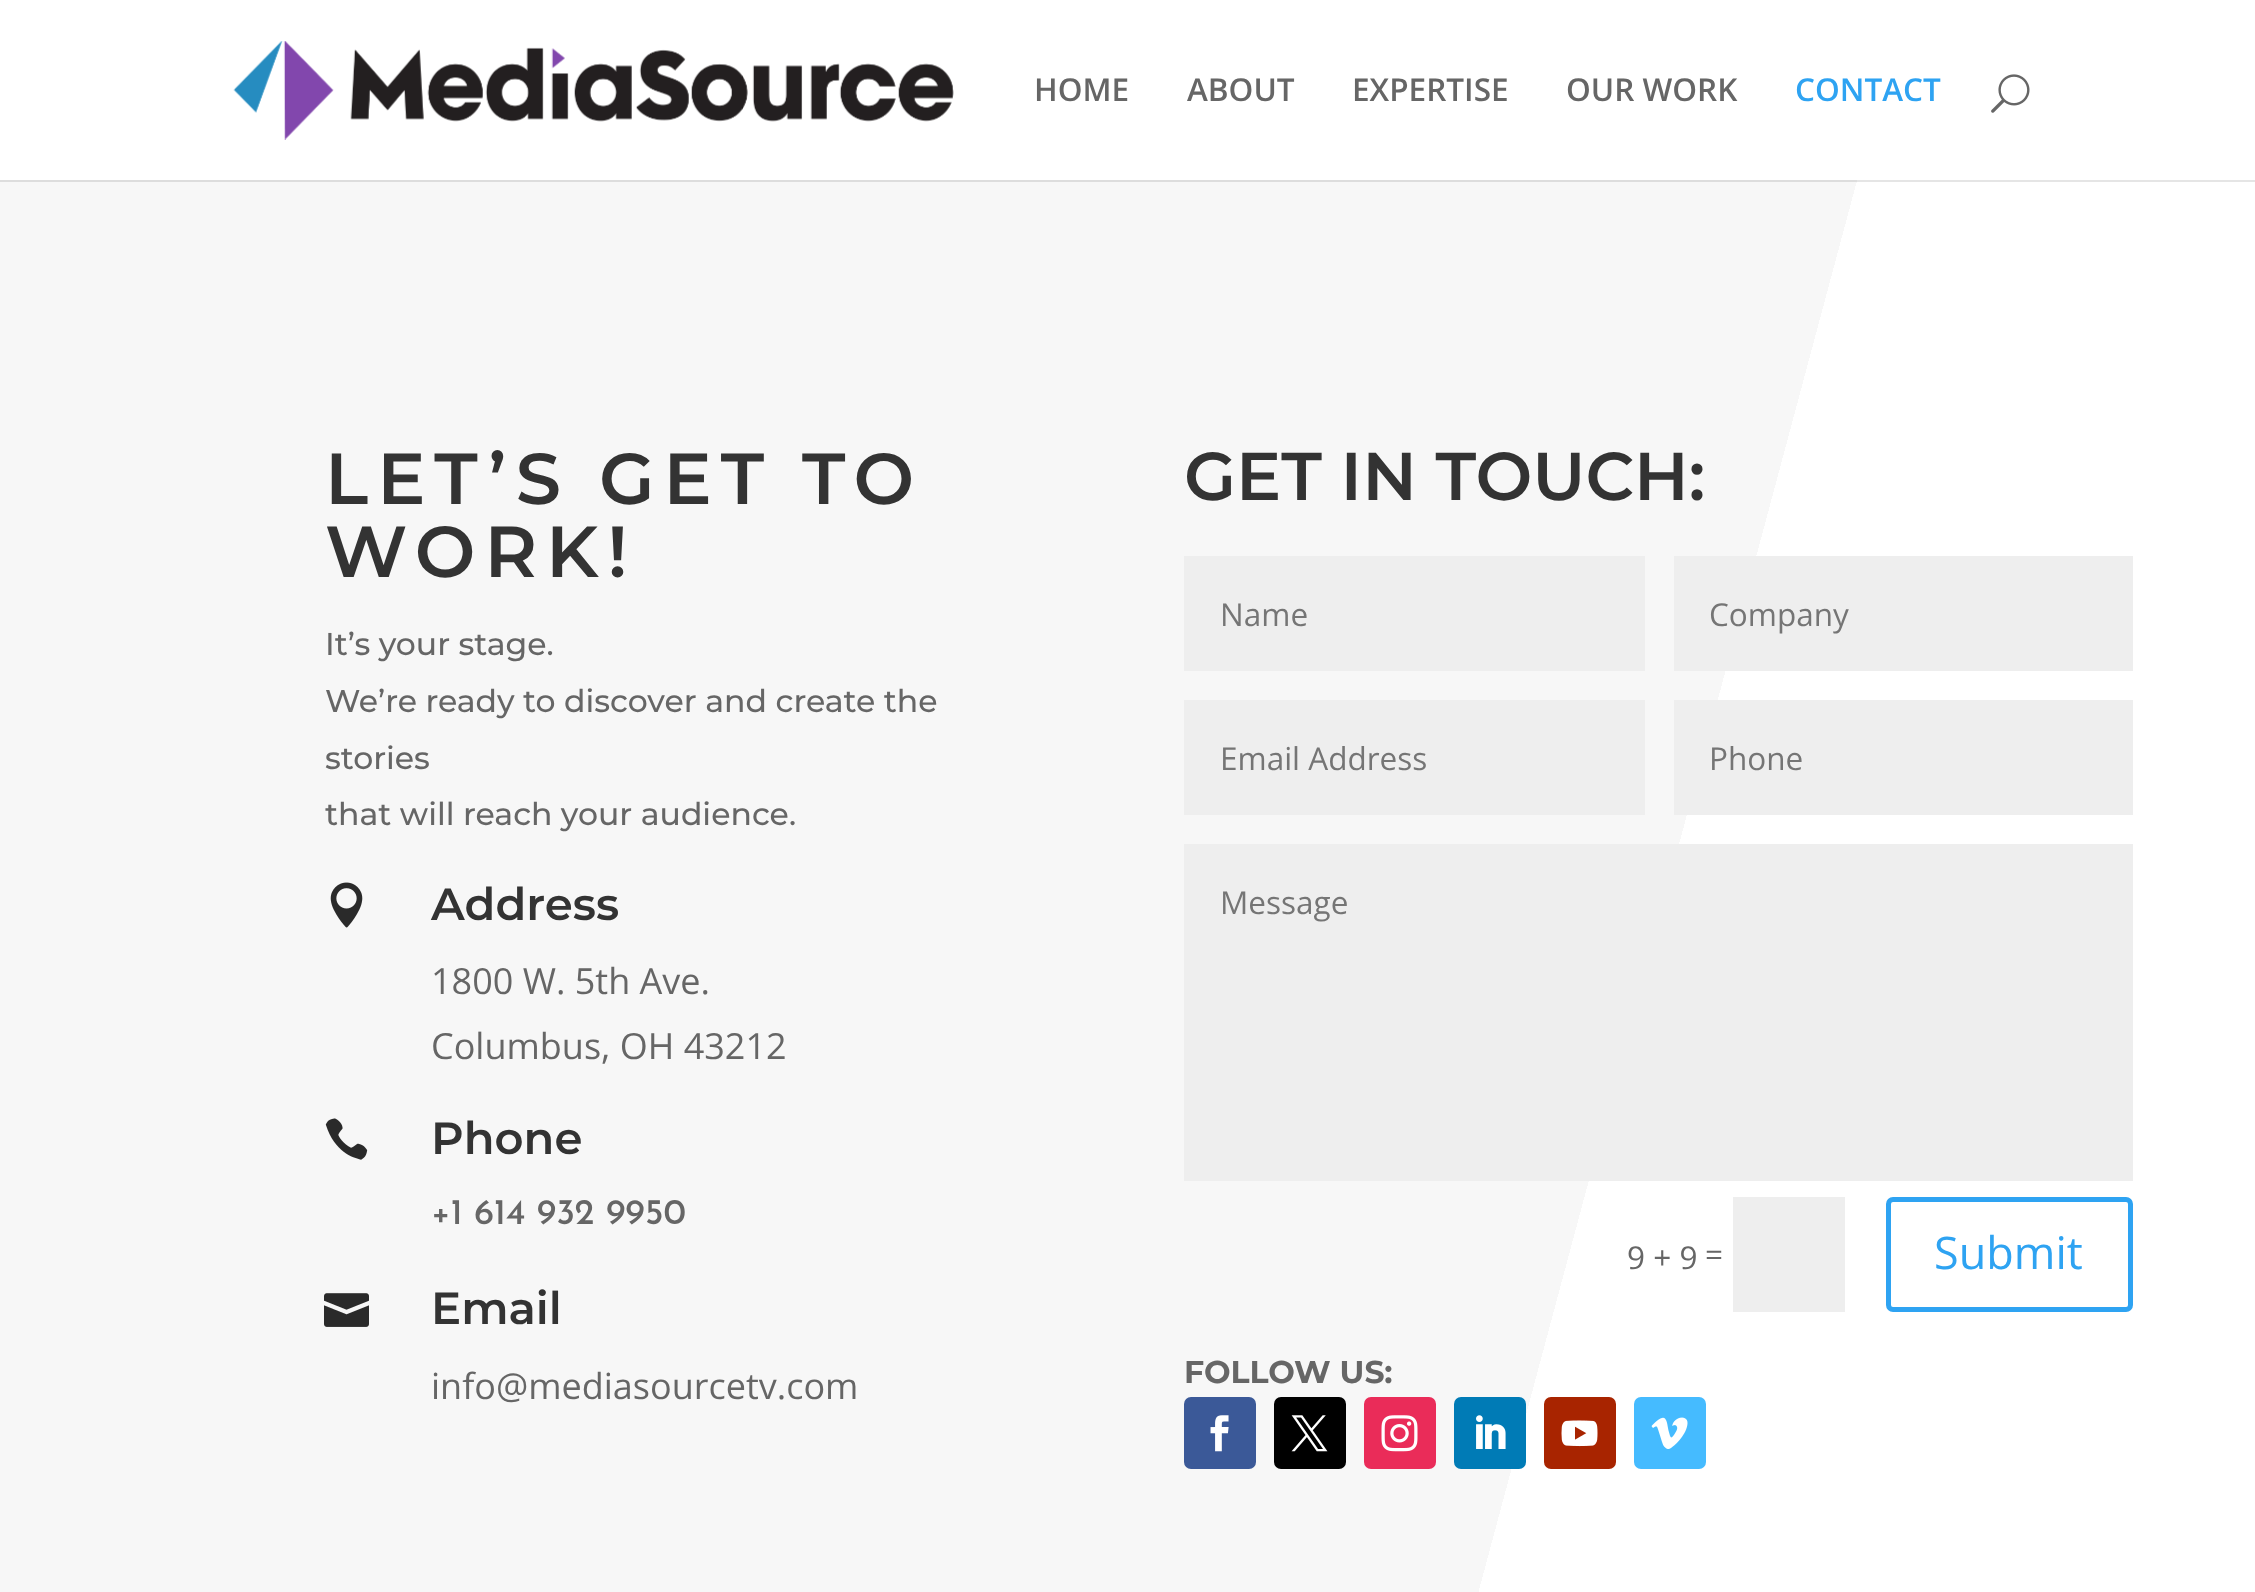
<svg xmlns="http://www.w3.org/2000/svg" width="2255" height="1592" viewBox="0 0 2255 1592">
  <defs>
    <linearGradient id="g1" gradientUnits="userSpaceOnUse" x1="-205" y1="943" x2="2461" y2="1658"><stop offset="0.65" stop-color="rgb(247,247,247)"/><stop offset="0.65" stop-color="rgb(255,255,255)"/></linearGradient>
  </defs>
  <rect width="100%" height="100%" fill="rgb(255,255,255)"/>
  <rect x="0" y="180" width="1857" height="1412" fill="url(#g1)"/>
  <path d="M0 180V182H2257V2V180Z" fill="rgba(0,0,0,0.1)"/>
  <image x="233" y="41" width="721" height="99" href="pic1.png"/>
  <g font-family="Open Sans" font-size="31.5" font-weight="600" fill="rgb(102,102,102)">
    <text x="1034" y="101">HOME</text>
    <text x="1187" y="101">ABOUT</text>
    <text x="1352" y="101">EXPERTISE</text>
    <text x="1566" y="101">OUR WORK</text>
  </g>
  <text x="1795" y="101" font-family="Open Sans" font-size="31.5" font-weight="600" fill="rgb(46,163,242)">CONTACT</text>
  <image x="1991" y="74" width="39" height="39" href="pic2.png"/>
  <g font-family="Montserrat" font-size="72" font-weight="600" letter-spacing="9" fill="rgb(51,51,51)">
    <text>
      <tspan x="325" y="504">LET’S GET TO</tspan>
      <tspan x="325" y="577">WORK!</tspan>
    </text>
  </g>
  <g font-family="Montserrat" font-size="31.5" font-weight="500" fill="rgb(102,102,102)">
    <text>
      <tspan x="325" y="655">It’s your stage.</tspan>
      <tspan x="325" y="712">We’re ready to discover and create the</tspan>
      <tspan x="325" y="769">stories</tspan>
      <tspan x="325" y="825">that will reach your audience.</tspan>
    </text>
  </g>
  <image x="330" y="882" width="33" height="46" href="pic3.png"/>
  <text x="431" y="920" font-family="Montserrat" font-size="45" font-weight="600" fill="rgb(51,51,51)">Address</text>
  <g font-family="Open Sans" font-size="36" fill="rgb(102,102,102)">
    <text>
      <tspan x="431" y="994">1800 W. 5th Ave.</tspan>
      <tspan x="431" y="1059">Columbus, OH 43212</tspan>
    </text>
  </g>
  <image x="325" y="1118" width="43" height="42" href="pic4.png"/>
  <text x="431" y="1154" font-family="Montserrat" font-size="45" font-weight="600" fill="rgb(51,51,51)">Phone</text>
  <text x="431" y="1224" font-family="Josefin Sans" font-size="36" font-weight="500" fill="rgb(102,102,102)">+1 614 932 9950</text>
  <image x="324" y="1293" width="45" height="34" href="pic5.png"/>
  <text x="431" y="1324" font-family="Montserrat" font-size="45" font-weight="600" fill="rgb(51,51,51)">Email</text>
  <text x="431" y="1399" font-family="Open Sans" font-size="36" fill="rgb(102,102,102)">info@mediasourcetv.com</text>
  <text x="1184" y="500" font-family="Montserrat" font-size="67.5" font-weight="600" fill="rgb(51,51,51)">GET IN TOUCH:</text>
  <rect x="1184" y="556" width="461" height="115" fill="rgb(238,238,238)"/>
  <text x="1220" y="626" font-family="Open Sans" font-size="31.5" fill="rgb(117,117,117)">Name</text>
  <rect x="1674" y="556" width="459" height="115" fill="rgb(238,238,238)"/>
  <text x="1709" y="626" font-family="Open Sans" font-size="31.5" fill="rgb(117,117,117)">Company</text>
  <rect x="1184" y="700" width="461" height="115" fill="rgb(238,238,238)"/>
  <text x="1220" y="770" font-family="Open Sans" font-size="31.5" fill="rgb(117,117,117)">Email Address</text>
  <rect x="1674" y="700" width="459" height="115" fill="rgb(238,238,238)"/>
  <text x="1709" y="770" font-family="Open Sans" font-size="31.5" fill="rgb(117,117,117)">Phone</text>
  <rect x="1184" y="844" width="949" height="337" fill="rgb(238,238,238)"/>
  <text x="1220" y="914" font-family="Open Sans" font-size="31.5" fill="rgb(117,117,117)">Message</text>
  <g font-family="Open Sans" font-size="31.5" fill="rgb(102,102,102)">
    <text x="1627" y="1269">9 + 9</text>
    <text x="1705" y="1266">=</text>
  </g>
  <rect x="1733" y="1197" width="112" height="115" fill="rgb(238,238,238)"/>
  <rect x="1888.5" y="1199.5" width="242" height="110" rx="4.5" fill="none" stroke="rgb(46,163,242)" stroke-width="5"/>
  <text x="1934" y="1269" font-family="Open Sans" font-size="45" fill="rgb(46,163,242)">Submit</text>
  <text x="1184" y="1383" font-family="Montserrat" font-size="31.5" font-weight="bold" fill="rgb(102,102,102)">FOLLOW US:</text>
  <rect x="1184" y="1397" width="72" height="72" rx="7" fill="rgb(59,89,152)"/>
  <image x="1210" y="1415" width="19" height="37" href="pic6.png"/>
  <rect x="1274" y="1397" width="72" height="72" rx="7" fill="rgb(0,0,0)"/>
  <image x="1291" y="1415" width="37" height="37" href="pic7.png"/>
  <rect x="1364" y="1397" width="72" height="72" rx="7" fill="rgb(234,44,89)"/>
  <image x="1381" y="1415" width="37" height="37" href="pic8.png"/>
  <rect x="1454" y="1397" width="72" height="72" rx="7" fill="rgb(0,123,182)"/>
  <image x="1476" y="1415" width="30" height="34" href="pic9.png"/>
  <rect x="1544" y="1397" width="72" height="72" rx="7" fill="rgb(168,36,0)"/>
  <image x="1561" y="1420" width="37" height="27" href="pic10.png"/>
  <rect x="1634" y="1397" width="72" height="72" rx="7" fill="rgb(69,187,255)"/>
  <image x="1651" y="1417" width="37" height="32" href="pic11.png"/>
</svg>
